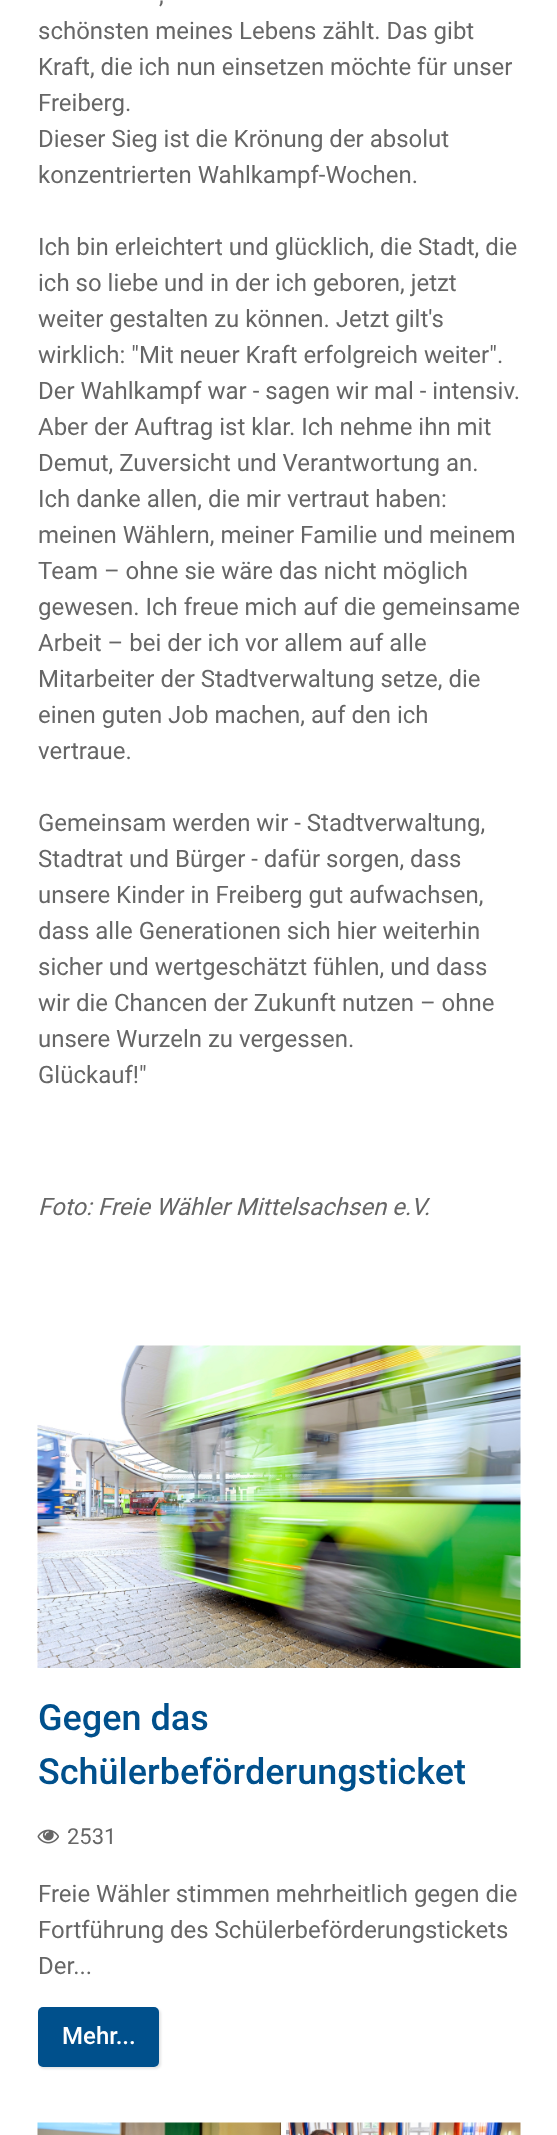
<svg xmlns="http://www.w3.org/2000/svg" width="557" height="2135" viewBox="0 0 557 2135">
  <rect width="100%" height="100%" fill="rgb(255,255,255)"/>
  <g font-family="Roboto" font-size="24" fill="rgb(102,102,102)">
    <text x="159" y="3">,</text>
    <text>
      <tspan x="38" y="39">schönsten meines Lebens zählt. Das gibt</tspan>
      <tspan x="38" y="75">Kraft, die ich nun einsetzen möchte für unser</tspan>
      <tspan x="38" y="111">Freiberg.</tspan>
      <tspan x="38" y="147">Dieser Sieg ist die Krönung der absolut</tspan>
      <tspan x="38" y="183">konzentrierten Wahlkampf-Wochen.</tspan>
    </text>
    <text>
      <tspan x="38" y="255">Ich bin erleichtert und glücklich, die Stadt, die</tspan>
      <tspan x="38" y="291">ich so liebe und in der ich geboren, jetzt</tspan>
      <tspan x="38" y="327">weiter gestalten zu können. Jetzt gilt's</tspan>
      <tspan x="38" y="363">wirklich: "Mit neuer Kraft erfolgreich weiter".</tspan>
      <tspan x="38" y="399">Der Wahlkampf war - sagen wir mal - intensiv.</tspan>
      <tspan x="38" y="435">Aber der Auftrag ist klar. Ich nehme ihn mit</tspan>
      <tspan x="38" y="471">Demut, Zuversicht und Verantwortung an.</tspan>
      <tspan x="38" y="507">Ich danke allen, die mir vertraut haben:</tspan>
      <tspan x="38" y="543">meinen Wählern, meiner Familie und meinem</tspan>
      <tspan x="38" y="579">Team – ohne sie wäre das nicht möglich</tspan>
      <tspan x="38" y="615">gewesen. Ich freue mich auf die gemeinsame</tspan>
      <tspan x="38" y="651">Arbeit – bei der ich vor allem auf alle</tspan>
      <tspan x="38" y="687">Mitarbeiter der Stadtverwaltung setze, die</tspan>
      <tspan x="38" y="723">einen guten Job machen, auf den ich</tspan>
      <tspan x="38" y="759">vertraue.</tspan>
    </text>
    <text>
      <tspan x="38" y="831">Gemeinsam werden wir - Stadtverwaltung,</tspan>
      <tspan x="38" y="867">Stadtrat und Bürger - dafür sorgen, dass</tspan>
      <tspan x="38" y="903">unsere Kinder in Freiberg gut aufwachsen,</tspan>
      <tspan x="38" y="939">dass alle Generationen sich hier weiterhin</tspan>
      <tspan x="38" y="975">sicher und wertgeschätzt fühlen, und dass</tspan>
      <tspan x="38" y="1011">wir die Chancen der Zukunft nutzen – ohne</tspan>
      <tspan x="38" y="1047">unsere Wurzeln zu vergessen.</tspan>
      <tspan x="38" y="1083">Glückauf!"</tspan>
    </text>
  </g>
  <text x="38" y="1215" font-family="Roboto" font-size="24" font-style="italic" fill="rgb(102,102,102)">Foto: Freie Wähler Mittelsachsen e.V.</text>
  <image x="37" y="1345" width="484" height="323" href="pic1.png"/>
  <g font-family="Roboto" font-size="36" font-weight="500" fill="rgb(0,80,140)">
    <text>
      <tspan x="38" y="1730">Gegen das</tspan>
      <tspan x="38" y="1784">Schülerbeförderungsticket</tspan>
    </text>
  </g>
  <image x="37" y="1829" width="23" height="15" href="pic2.png"/>
  <text x="67" y="1844" font-family="Roboto" font-size="22" fill="rgb(102,102,102)">2531</text>
  <g font-family="Roboto" font-size="24" fill="rgb(102,102,102)">
    <text>
      <tspan x="38" y="1902">Freie Wähler stimmen mehrheitlich gegen die</tspan>
      <tspan x="38" y="1938">Fortführung des Schülerbeförderungstickets</tspan>
      <tspan x="38" y="1974">Der...</tspan>
    </text>
  </g>
  <rect x="39" y="2009" width="122" height="60" rx="5" fill="rgba(0,0,0,0.1)" filter="blur(1px)"/>
  <rect x="38" y="2007" width="121" height="60" rx="5" fill="rgb(0,80,140)"/>
  <text x="62" y="2044" font-family="Roboto" font-size="24" font-weight="500" fill="rgb(255,255,255)">Mehr...</text>
  <image x="37" y="2122" width="484" height="13" href="pic3.png"/>
</svg>
